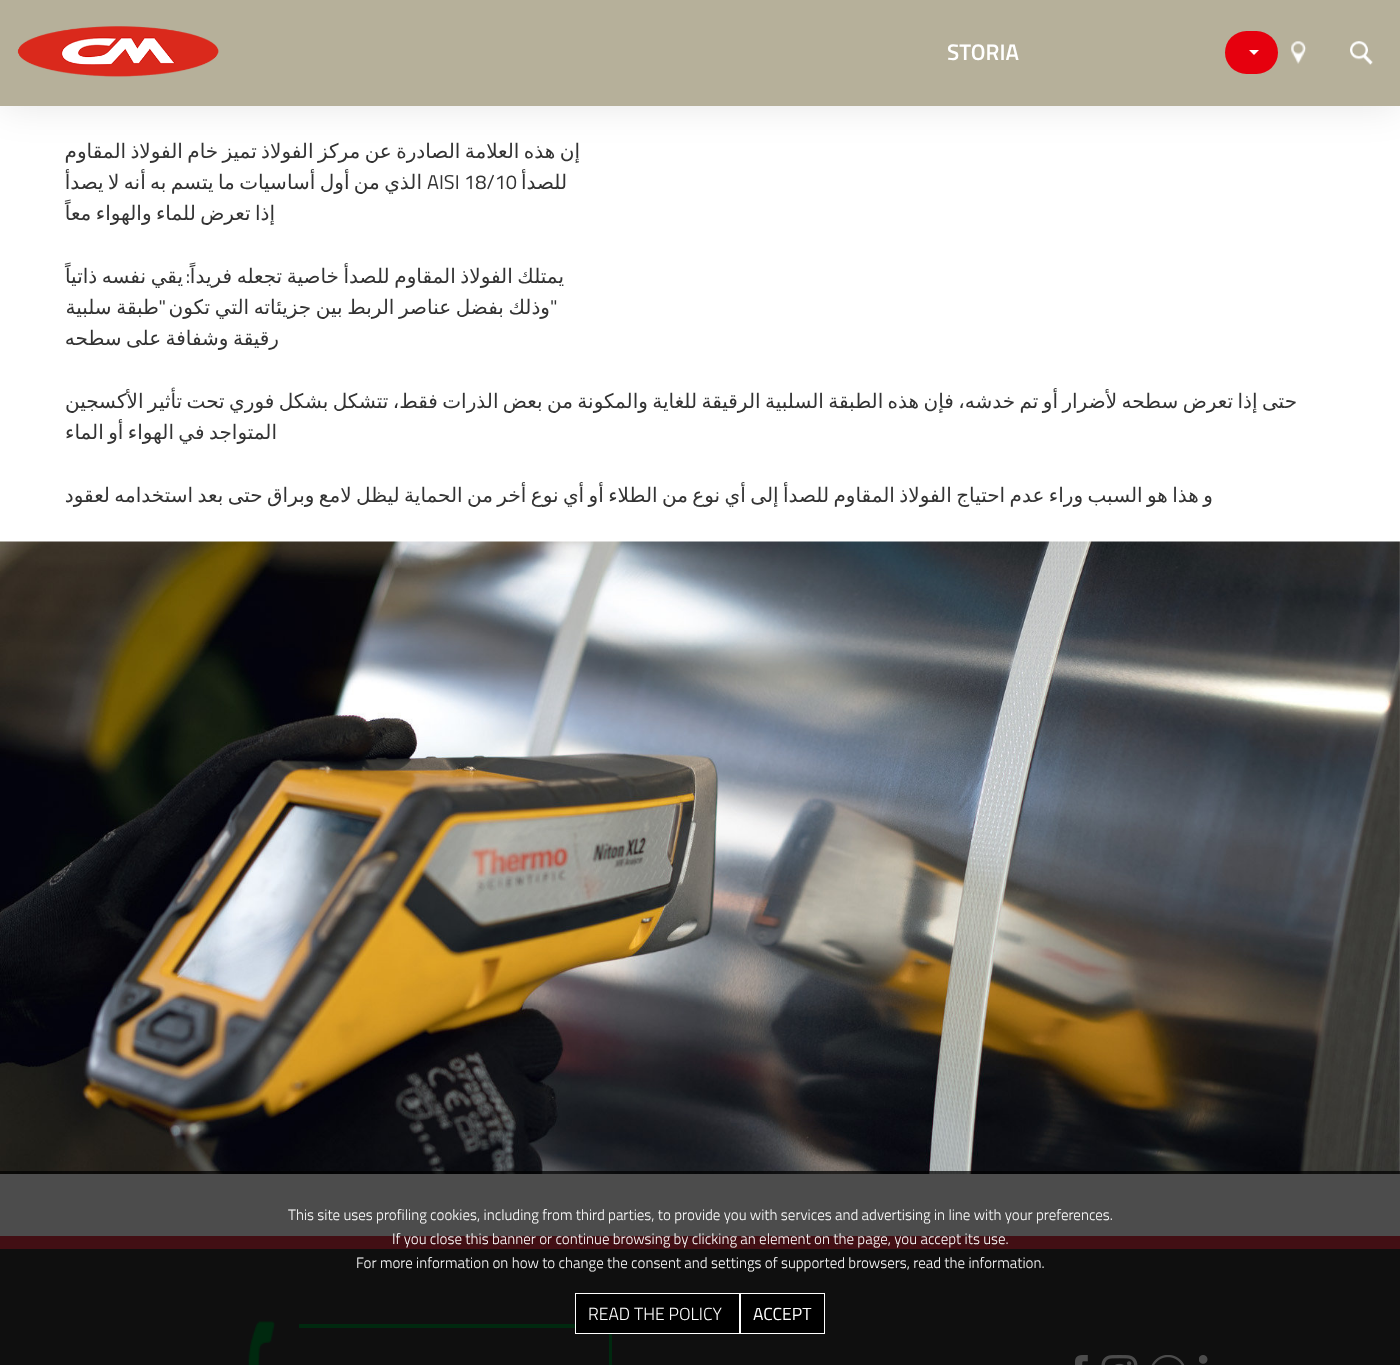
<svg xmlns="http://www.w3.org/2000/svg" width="1400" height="1365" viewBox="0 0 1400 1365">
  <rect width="100%" height="100%" fill="rgb(255,255,255)"/>
  <rect x="0" y="0" width="1400" height="106" fill="rgba(0,0,0,0.1)" filter="blur(19px)"/>
  <rect x="0" y="0" width="1400" height="106" fill="rgb(182,176,154)"/>
  <image x="1350" y="41" width="23" height="24" href="pic1.png"/>
  <image x="1291" y="41" width="16" height="23" href="pic2.png"/>
  <rect x="1225" y="31" width="53" height="43" rx="21.5" fill="rgb(230,0,14)"/>
  <path d="M1249 50H1259L1254 55Z" fill="rgb(255,255,255)"/>
  <text x="947" y="60" font-family="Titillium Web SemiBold" font-size="22.5" font-weight="600" fill="rgb(255,255,255)">STORIA</text>
  <image x="17" y="26" width="202" height="51" href="pic3.png"/>
  <g font-family="DejaVu Sans" font-size="20" direction="rtl" fill="rgb(51,51,51)">
    <text x="580" y="158" word-spacing="-1.95">إن هذه العلامة الصادرة عن مركز الفولاذ تميز خام الفولاذ المقاوم</text>
    <text x="567" y="189">للصدأ</text>
    <text x="422" y="189" word-spacing="-1.95">الذي من أول أساسيات ما يتسم به أنه لا يصدأ</text>
  </g>
  <text x="427" y="189" font-family="Titillium Web" font-size="20" fill="rgb(51,51,51)">AISI 18/10</text>
  <g font-family="DejaVu Sans" font-size="20" direction="rtl" fill="rgb(51,51,51)">
    <text x="275" y="220" word-spacing="-1.95">إذا تعرض للماء والهواء معاً</text>
    <text x="564" y="283" word-spacing="-1.75">يمتلك الفولاذ المقاوم للصدأ خاصية تجعله فريداً</text>
  </g>
  <text x="190" y="283" font-family="Titillium Web" font-size="20" direction="rtl" fill="rgb(51,51,51)">:</text>
  <g font-family="DejaVu Sans" font-size="20" direction="rtl" fill="rgb(51,51,51)">
    <text x="183" y="283" word-spacing="-1.75">يقي نفسه ذاتياً</text>
    <text x="550" y="314" word-spacing="-1.75">وذلك بفضل عناصر الربط بين جزيئاته التي تكون</text>
  </g>
  <text x="166" y="314" font-family="Titillium Web" font-size="20" direction="rtl" fill="rgb(51,51,51)">"</text>
  <text x="159" y="314" word-spacing="-1.75" font-family="DejaVu Sans" font-size="20" direction="rtl" fill="rgb(51,51,51)">طبقة سلبية</text>
  <text x="550" y="314" font-family="Titillium Web" font-size="20" fill="rgb(51,51,51)">"</text>
  <g font-family="DejaVu Sans" font-size="20" direction="rtl" fill="rgb(51,51,51)">
    <text x="279" y="345" word-spacing="-1.95">رقيقة وشفافة على سطحه</text>
    <text x="1297" y="408" word-spacing="-1.95">حتى إذا تعرض سطحه لأضرار أو تم خدشه، فإن هذه الطبقة السلبية الرقيقة للغاية والمكونة من بعض الذرات فقط، تتشكل بشكل فوري تحت تأثير الأكسجين</text>
    <text x="277" y="439" word-spacing="-1.95">المتواجد في الهواء أو الماء</text>
    <text x="1213" y="502" word-spacing="-1.95">و هذا هو السبب وراء عدم احتياج الفولاذ المقاوم للصدأ إلى أي نوع من الطلاء أو أي نوع أخر من الحماية ليظل لامع وبراق حتى بعد استخدامه لعقود</text>
  </g>
  <image x="0" y="541" width="1400" height="633" href="pic4.png"/>
  <rect x="0" y="1249" width="1400" height="116" fill="rgb(51,51,51)"/>
  <rect x="0" y="1236" width="1400" height="13" fill="rgb(220,53,69)"/>
  <image x="1199" y="1355" width="9" height="9" href="pic5.png"/>
  <image x="1151" y="1355" width="34" height="10" href="pic6.png"/>
  <image x="1101" y="1355" width="37" height="10" href="pic7.png"/>
  <image x="1075" y="1355" width="13" height="10" href="pic8.png"/>
  <path d="M249 1324H600C607 1324 612 1329 612 1336V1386C612 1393 607 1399 600 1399H249ZM249 1328H600C605 1328 609 1331 609 1336V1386C609 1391 605 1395 600 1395H249Z" fill="rgb(0,137,50)" fill-rule="evenodd"/>
  <rect x="249" y="1324" width="50" height="4" fill="rgb(51,51,51)"/>
  <image x="248" y="1321" width="27" height="44" href="pic9.png"/>
  <rect x="0" y="1171" width="1400" height="194" fill="rgba(0,0,0,0.7)"/>
  <g font-family="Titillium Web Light" font-size="15" font-weight="300" fill="rgb(255,255,255)">
    <text x="288" y="1220">This site uses profiling cookies, including from third parties, to provide you with services and advertising in line with your preferences.</text>
    <text x="392" y="1244">If you close this banner or continue browsing by clicking an element on the page, you accept its use.</text>
    <text x="356" y="1268">For more information on how to change the consent and settings of supported browsers, read the information.</text>
  </g>
  <rect x="740.5" y="1293.5" width="84" height="40" fill="rgb(0,0,0)" stroke="rgb(255,255,255)"/>
  <text x="753" y="1320" font-family="Titillium Web" font-size="17.5" fill="rgb(255,255,255)">ACCEPT</text>
  <rect x="575.5" y="1293.5" width="164" height="40" fill="rgb(0,0,0)" stroke="rgb(255,255,255)"/>
  <text x="588" y="1320" font-family="Titillium Web Light" font-size="17.5" font-weight="300" fill="rgb(255,255,255)">READ THE POLICY</text>
</svg>
